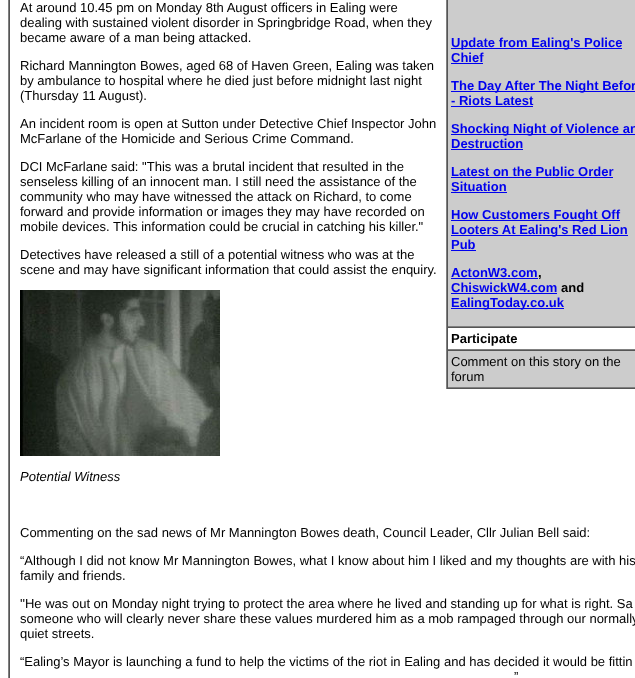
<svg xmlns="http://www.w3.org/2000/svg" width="635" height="678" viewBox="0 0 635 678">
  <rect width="100%" height="100%" fill="rgb(255,255,255)"/>
  <rect x="8" y="0" width="1" height="678" fill="rgb(128,128,128)"/>
  <rect x="9" y="0" width="1" height="678" fill="rgb(85,85,85)"/>
  <g font-family="Liberation Sans" font-size="13" fill="rgb(0,0,0)">
    <text>
      <tspan x="20" y="12">At around 10.45 pm on Monday 8th August officers in Ealing were</tspan>
      <tspan x="20" y="27">dealing with sustained violent disorder in Springbridge Road, when they</tspan>
      <tspan x="20" y="42">became aware of a man being attacked.</tspan>
    </text>
    <text>
      <tspan x="20" y="70">Richard Mannington Bowes, aged 68 of Haven Green, Ealing was taken</tspan>
      <tspan x="20" y="85">by ambulance to hospital where he died just before midnight last night</tspan>
      <tspan x="20" y="100">(Thursday 11 August).</tspan>
    </text>
  </g>
  <rect x="446" y="388" width="189" height="1" fill="rgb(85,85,85)"/>
  <rect x="446" y="0" width="1" height="389" fill="rgb(128,128,128)"/>
  <rect x="448" y="0" width="187" height="326" fill="rgb(204,204,204)"/>
  <rect x="447" y="326" width="188" height="1" fill="rgb(128,128,128)"/>
  <rect x="447" y="0" width="1" height="327" fill="rgb(85,85,85)"/>
  <rect x="451" y="48" width="171" height="1" fill="rgb(0,0,238)"/>
  <g font-family="Liberation Sans" font-size="13" font-weight="bold" fill="rgb(0,0,238)">
    <text>
      <tspan x="451" y="47">Update from Ealing's Police</tspan>
      <tspan x="451" y="62">Chief</tspan>
    </text>
  </g>
  <rect x="451" y="63" width="32" height="1" fill="rgb(0,0,238)"/>
  <rect x="451" y="91" width="184" height="1" fill="rgb(0,0,238)"/>
  <g font-family="Liberation Sans" font-size="13" font-weight="bold" fill="rgb(0,0,238)">
    <text>
      <tspan x="451" y="90">The Day After The Night Befor</tspan>
      <tspan x="451" y="105">- Riots Latest</tspan>
    </text>
  </g>
  <rect x="451" y="106" width="82" height="1" fill="rgb(0,0,238)"/>
  <rect x="451" y="134" width="184" height="1" fill="rgb(0,0,238)"/>
  <g font-family="Liberation Sans" font-size="13" font-weight="bold" fill="rgb(0,0,238)">
    <text>
      <tspan x="451" y="133">Shocking Night of Violence an</tspan>
      <tspan x="451" y="148">Destruction</tspan>
    </text>
  </g>
  <rect x="451" y="149" width="72" height="1" fill="rgb(0,0,238)"/>
  <text x="451" y="176" font-family="Liberation Sans" font-size="13" font-weight="bold" fill="rgb(0,0,238)">Latest on the Public Order</text>
  <rect x="451" y="177" width="162" height="1" fill="rgb(0,0,238)"/>
  <text x="451" y="191" font-family="Liberation Sans" font-size="13" font-weight="bold" fill="rgb(0,0,238)">Situation</text>
  <rect x="451" y="192" width="56" height="1" fill="rgb(0,0,238)"/>
  <rect x="451" y="220" width="169" height="1" fill="rgb(0,0,238)"/>
  <text x="451" y="219" font-family="Liberation Sans" font-size="13" font-weight="bold" fill="rgb(0,0,238)">How Customers Fought Off</text>
  <rect x="451" y="235" width="177" height="1" fill="rgb(0,0,238)"/>
  <g font-family="Liberation Sans" font-size="13" font-weight="bold" fill="rgb(0,0,238)">
    <text>
      <tspan x="451" y="234">Looters At Ealing's Red Lion</tspan>
      <tspan x="451" y="249">Pub</tspan>
    </text>
  </g>
  <rect x="451" y="250" width="25" height="1" fill="rgb(0,0,238)"/>
  <text x="451" y="277" font-family="Liberation Sans" font-size="13" font-weight="bold" fill="rgb(0,0,238)">ActonW3.com</text>
  <text x="538" y="277" font-family="Liberation Sans" font-size="13" font-weight="bold" fill="rgb(0,0,0)">,</text>
  <rect x="451" y="278" width="87" height="1" fill="rgb(0,0,238)"/>
  <text x="451" y="292" font-family="Liberation Sans" font-size="13" font-weight="bold" fill="rgb(0,0,238)">ChiswickW4.com</text>
  <rect x="451" y="293" width="106" height="1" fill="rgb(0,0,238)"/>
  <text x="561" y="292" font-family="Liberation Sans" font-size="13" font-weight="bold" fill="rgb(0,0,0)">and</text>
  <rect x="451" y="308" width="113" height="1" fill="rgb(0,0,238)"/>
  <text x="451" y="307" font-family="Liberation Sans" font-size="13" font-weight="bold" fill="rgb(0,0,238)">EalingToday.co.uk</text>
  <rect x="447" y="327" width="188" height="1" fill="rgb(85,85,85)"/>
  <rect x="447" y="349" width="188" height="1" fill="rgb(128,128,128)"/>
  <rect x="447" y="327" width="1" height="23" fill="rgb(85,85,85)"/>
  <text x="451" y="343" font-family="Liberation Sans" font-size="13" font-weight="bold" fill="rgb(0,0,0)">Participate</text>
  <rect x="448" y="351" width="187" height="36" fill="rgb(204,204,204)"/>
  <rect x="447" y="350" width="188" height="1" fill="rgb(85,85,85)"/>
  <rect x="447" y="387" width="188" height="1" fill="rgb(128,128,128)"/>
  <rect x="447" y="350" width="1" height="38" fill="rgb(85,85,85)"/>
  <g font-family="Liberation Sans" font-size="13" fill="rgb(0,0,0)">
    <text>
      <tspan x="451" y="366">Comment on this story on the</tspan>
      <tspan x="451" y="381">forum</tspan>
    </text>
    <text>
      <tspan x="20" y="128">An incident room is open at Sutton under Detective Chief Inspector John</tspan>
      <tspan x="20" y="143">McFarlane of the Homicide and Serious Crime Command.</tspan>
    </text>
    <text>
      <tspan x="20" y="171">DCI McFarlane said: "This was a brutal incident that resulted in the</tspan>
      <tspan x="20" y="186">senseless killing of an innocent man. I still need the assistance of the</tspan>
      <tspan x="20" y="201">community who may have witnessed the attack on Richard, to come</tspan>
      <tspan x="20" y="216">forward and provide information or images they may have recorded on</tspan>
      <tspan x="20" y="231">mobile devices. This information could be crucial in catching his killer."</tspan>
    </text>
    <text>
      <tspan x="20" y="259">Detectives have released a still of a potential witness who was at the</tspan>
      <tspan x="20" y="274">scene and may have significant information that could assist the enquiry.</tspan>
    </text>
  </g>
  <image x="20" y="290" width="200" height="166" href="pic1.png"/>
  <text x="20" y="481" font-family="Liberation Sans" font-size="13" font-style="italic" fill="rgb(0,0,0)">Potential Witness</text>
  <g font-family="Liberation Sans" font-size="13" fill="rgb(0,0,0)">
    <text x="20" y="537">Commenting on the sad news of Mr Mannington Bowes death, Council Leader, Cllr Julian Bell said:</text>
    <text>
      <tspan x="20" y="565">“Although I did not know Mr Mannington Bowes, what I know about him I liked and my thoughts are with his</tspan>
      <tspan x="20" y="580">family and friends.</tspan>
    </text>
    <text>
      <tspan x="20" y="608">''He was out on Monday night trying to protect the area where he lived and standing up for what is right. Sa</tspan>
      <tspan x="20" y="623">someone who will clearly never share these values murdered him as a mob rampaged through our normally</tspan>
      <tspan x="20" y="638">quiet streets.</tspan>
    </text>
    <text x="20" y="666">“Ealing’s Mayor is launching a fund to help the victims of the riot in Ealing and has decided it would be fittin</text>
    <text x="514" y="681">”</text>
  </g>
</svg>
